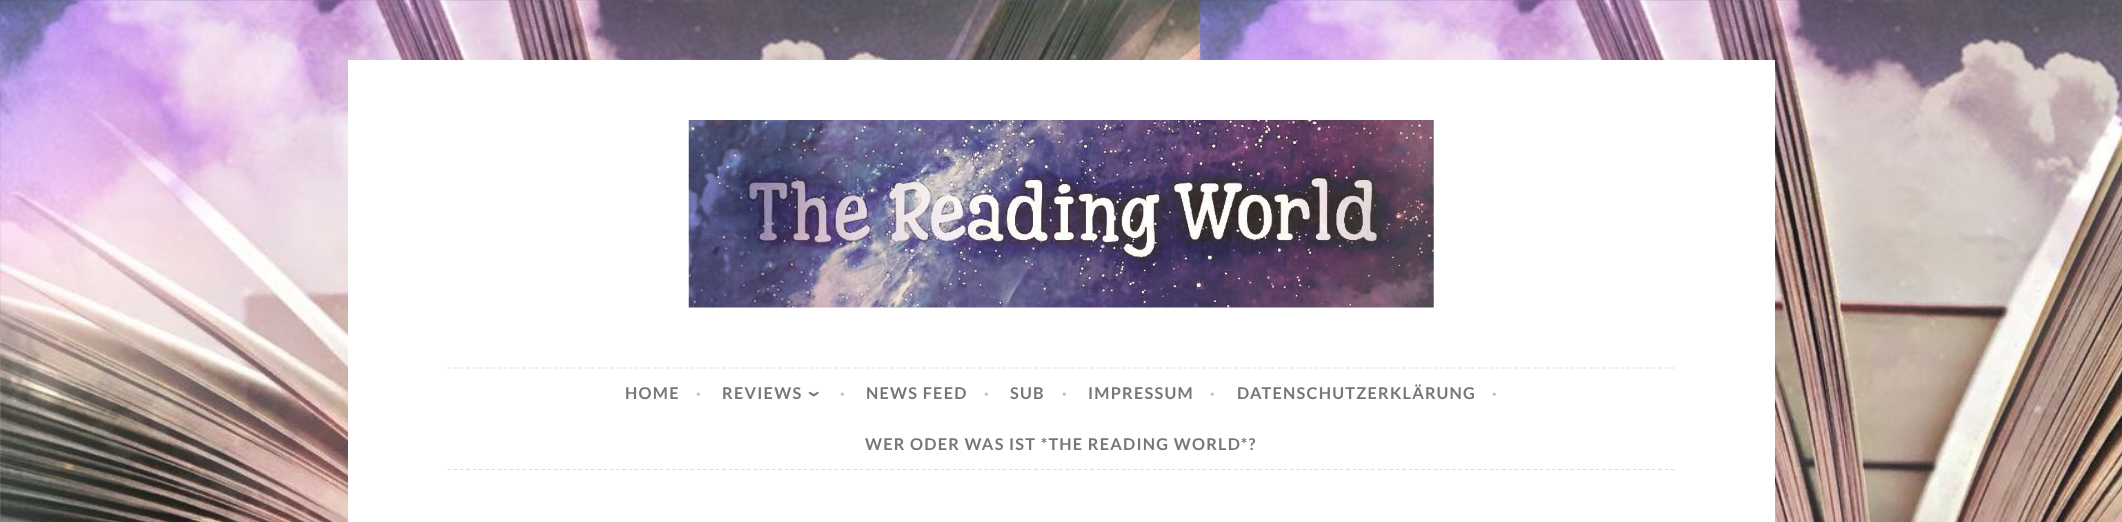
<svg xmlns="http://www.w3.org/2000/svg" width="2122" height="522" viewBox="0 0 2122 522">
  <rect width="100%" height="100%" fill="rgb(255,255,255)"/>
  <image x="0" y="0" width="2122" height="522" href="pic1.png"/>
  <rect x="348" y="60" width="1427" height="462" fill="rgb(255,255,255)"/>
  <image x="688" y="120" width="746" height="188" href="pic2.png"/>
  <path d="M447.5 368H1675" fill="none" stroke="rgb(221,221,221)" stroke-width="1.2" stroke-dasharray="3.75 2.49"/>
  <path d="M447.5 469.5H1675" fill="none" stroke="rgb(221,221,221)" stroke-width="1.2" stroke-dasharray="3.75 2.49"/>
  <text x="625" y="399" font-family="Lato" font-size="16.25" font-weight="bold" letter-spacing="1.25" fill="rgb(119,119,119)">HOME</text>
  <text x="696" y="399" font-family="Lato" font-size="16.25" font-weight="bold" letter-spacing="1.25" fill="rgb(187,187,187)">·</text>
  <text x="722" y="399" font-family="Lato" font-size="16.25" font-weight="bold" letter-spacing="1.25" fill="rgb(119,119,119)">REVIEWS</text>
  <text x="807" y="390" transform="rotate(90 807 390)" font-family="Lato" font-size="25" font-weight="bold" letter-spacing="1.25" fill="rgb(119,119,119)">›</text>
  <text x="840" y="399" font-family="Lato" font-size="16.25" font-weight="bold" letter-spacing="1.25" fill="rgb(187,187,187)">·</text>
  <text x="866" y="399" font-family="Lato" font-size="16.25" font-weight="bold" letter-spacing="1.25" fill="rgb(119,119,119)">NEWS FEED</text>
  <text x="984" y="399" font-family="Lato" font-size="16.25" font-weight="bold" letter-spacing="1.25" fill="rgb(187,187,187)">·</text>
  <text x="1010" y="399" font-family="Lato" font-size="16.25" font-weight="bold" letter-spacing="1.25" fill="rgb(119,119,119)">SUB</text>
  <text x="1062" y="399" font-family="Lato" font-size="16.25" font-weight="bold" letter-spacing="1.25" fill="rgb(187,187,187)">·</text>
  <text x="1088" y="399" font-family="Lato" font-size="16.25" font-weight="bold" letter-spacing="1.25" fill="rgb(119,119,119)">IMPRESSUM</text>
  <text x="1210" y="399" font-family="Lato" font-size="16.25" font-weight="bold" letter-spacing="1.25" fill="rgb(187,187,187)">·</text>
  <text x="1237" y="399" font-family="Lato" font-size="16.25" font-weight="bold" letter-spacing="1.25" fill="rgb(119,119,119)">DATENSCHUTZERKLÄRUNG</text>
  <text x="1492" y="399" font-family="Lato" font-size="16.25" font-weight="bold" letter-spacing="1.25" fill="rgb(187,187,187)">·</text>
  <text x="865" y="450" font-family="Lato" font-size="16.25" font-weight="bold" letter-spacing="1.25" fill="rgb(119,119,119)">WER ODER WAS IST *THE READING WORLD*?</text>
</svg>
